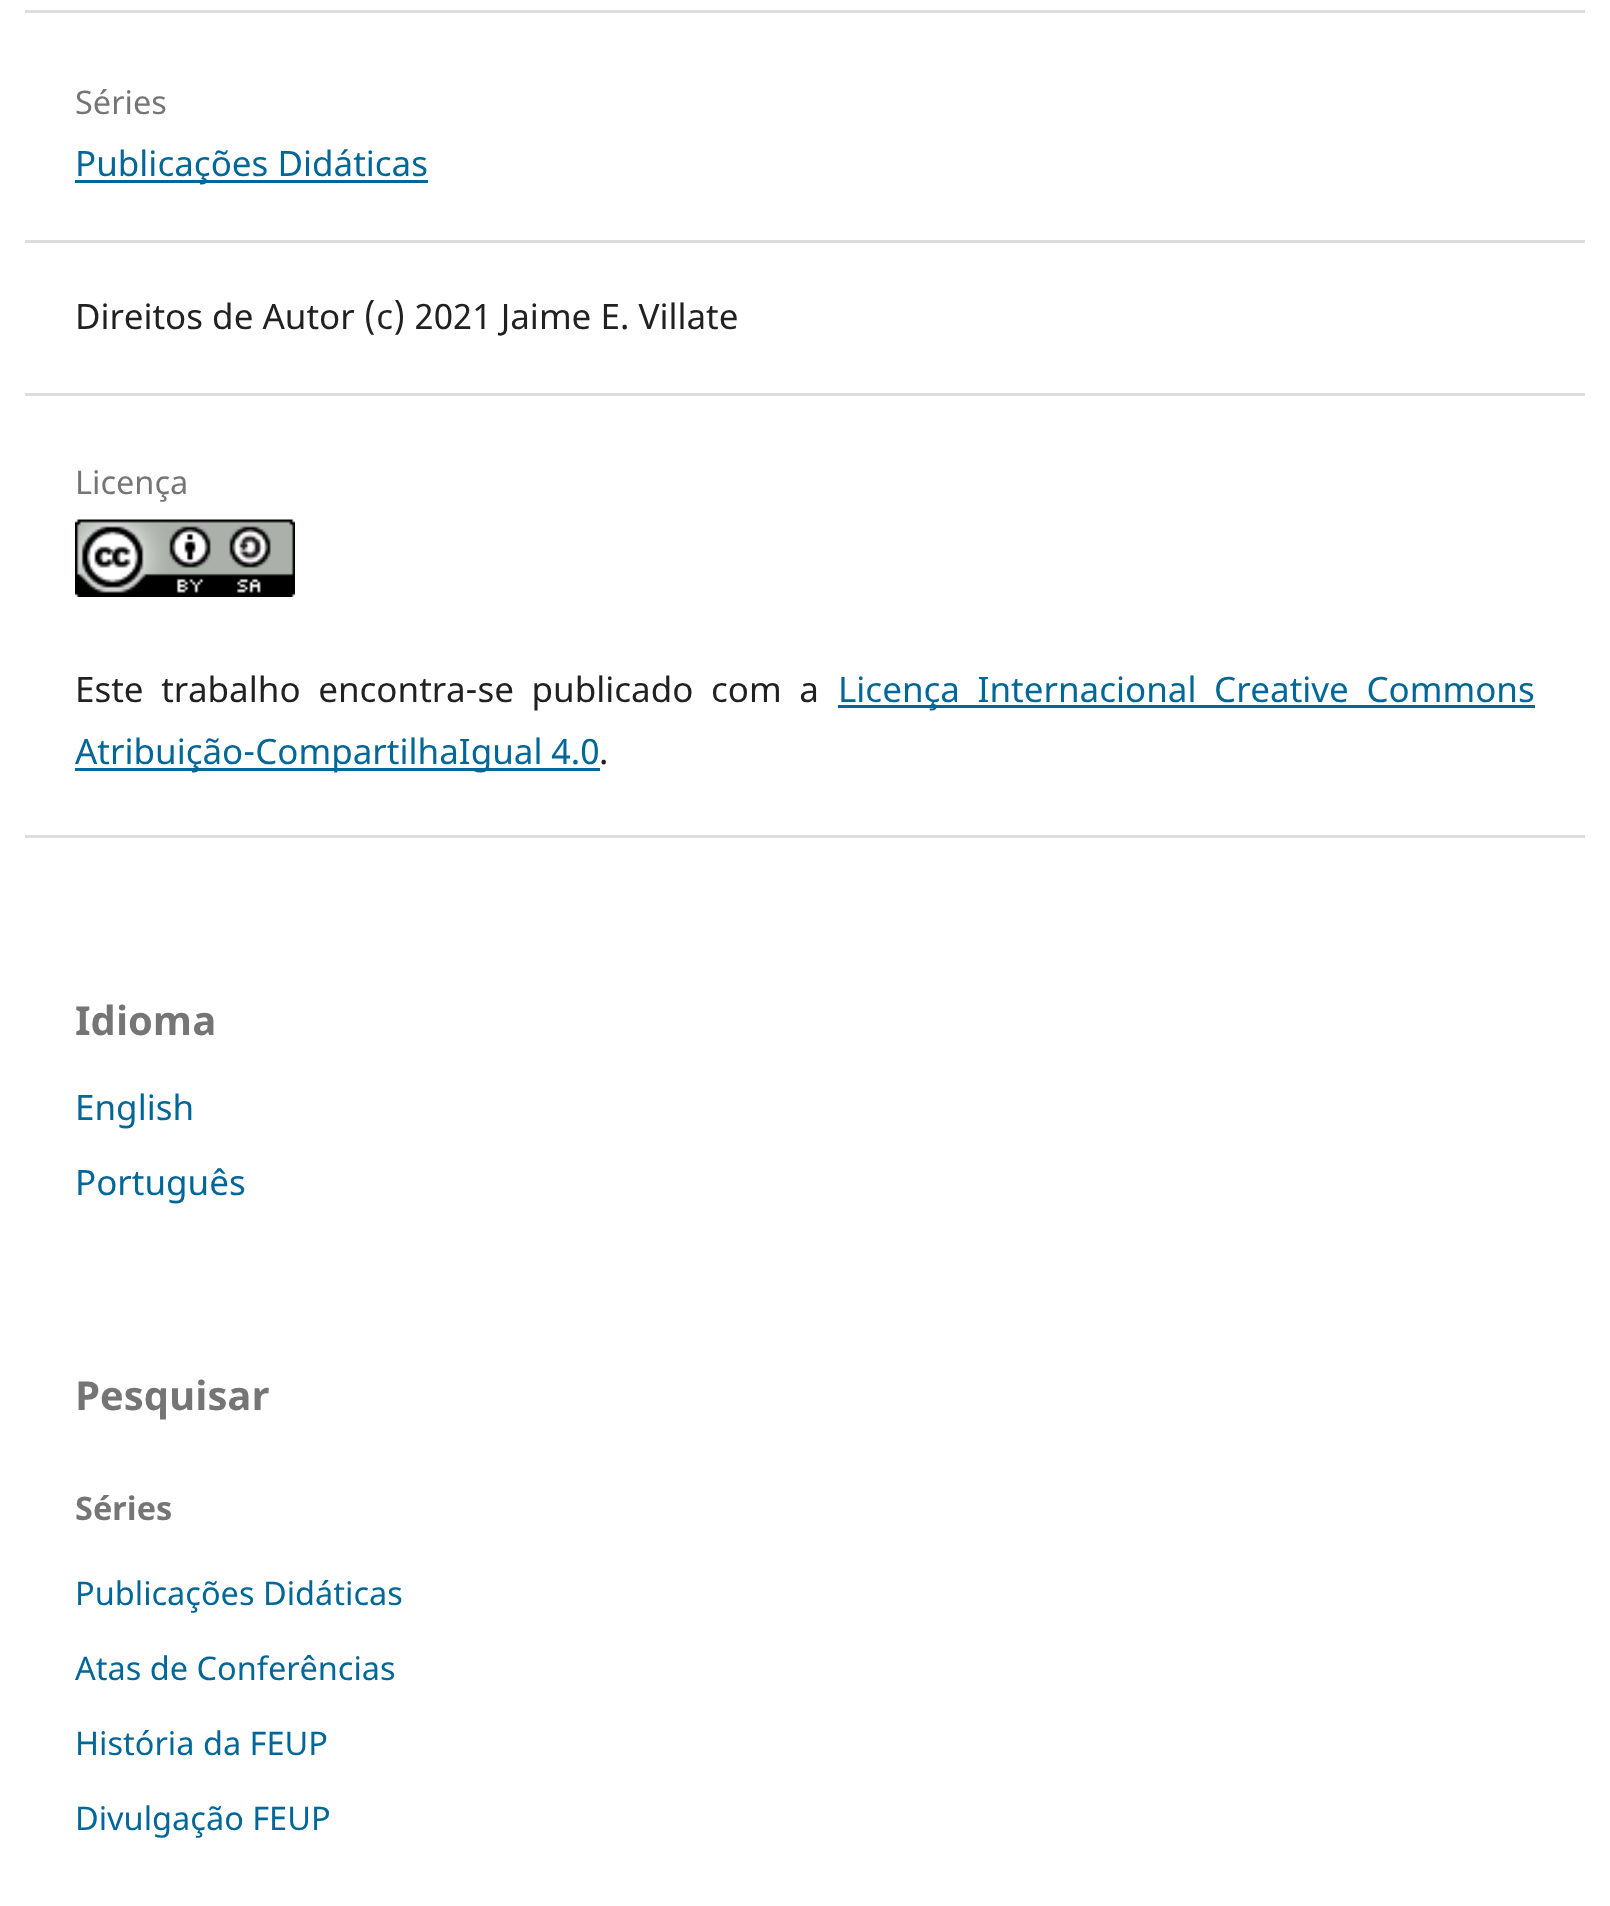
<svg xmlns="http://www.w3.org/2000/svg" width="1610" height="1906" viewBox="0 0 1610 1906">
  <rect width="100%" height="100%" fill="rgb(255,255,255)"/>
  <rect x="25" y="10" width="1560" height="3" fill="rgb(221,221,221)"/>
  <rect x="25" y="240" width="1560" height="3" fill="rgb(221,221,221)"/>
  <text x="75" y="114" font-family="Noto Sans" font-size="32.5" fill="rgb(117,117,117)">Séries</text>
  <rect x="75" y="180" width="353" height="3" fill="rgb(0,103,152)"/>
  <text x="75" y="176" font-family="Noto Sans" font-size="35" fill="rgb(0,103,152)">Publicações Didáticas</text>
  <rect x="25" y="393" width="1560" height="3" fill="rgb(221,221,221)"/>
  <text x="75" y="329" font-family="Noto Sans" font-size="35" fill="rgb(33,33,33)">Direitos de Autor (c) 2021 Jaime E. Villate</text>
  <rect x="25" y="835" width="1560" height="3" fill="rgb(221,221,221)"/>
  <text x="75" y="494" font-family="Noto Sans" font-size="32.5" fill="rgb(117,117,117)">Licença</text>
  <image x="75" y="519" width="220" height="78" href="pic1.png"/>
  <text x="75" y="702" word-spacing="8.5" font-family="Noto Sans" font-size="35" fill="rgb(33,33,33)">Este trabalho encontra-se publicado com a</text>
  <rect x="838" y="705" width="697" height="3" fill="rgb(0,103,152)"/>
  <text x="838" y="702" word-spacing="8.5" font-family="Noto Sans" font-size="35" fill="rgb(0,103,152)">Licença Internacional Creative Commons</text>
  <rect x="75" y="768" width="525" height="3" fill="rgb(0,103,152)"/>
  <text x="75" y="764" font-family="Noto Sans" font-size="35" fill="rgb(0,103,152)">Atribuição-CompartilhaIgual 4.0</text>
  <text x="599" y="764" font-family="Noto Sans" font-size="35" fill="rgb(33,33,33)">.</text>
  <text x="75" y="1035" font-family="Noto Sans" font-size="40" font-weight="bold" fill="rgb(117,117,117)">Idioma</text>
  <g font-family="Noto Sans" font-size="35" fill="rgb(0,103,152)">
    <text x="75" y="1120">English</text>
    <text x="75" y="1195">Português</text>
  </g>
  <text x="75" y="1410" font-family="Noto Sans" font-size="40" font-weight="bold" fill="rgb(117,117,117)">Pesquisar</text>
  <text x="75" y="1520" font-family="Noto Sans" font-size="32.5" font-weight="bold" fill="rgb(117,117,117)">Séries</text>
  <g font-family="Noto Sans" font-size="32.5" fill="rgb(0,103,152)">
    <text x="75" y="1605">Publicações Didáticas</text>
    <text x="75" y="1680">Atas de Conferências</text>
    <text x="75" y="1755">História da FEUP</text>
    <text x="75" y="1830">Divulgação FEUP</text>
  </g>
</svg>
